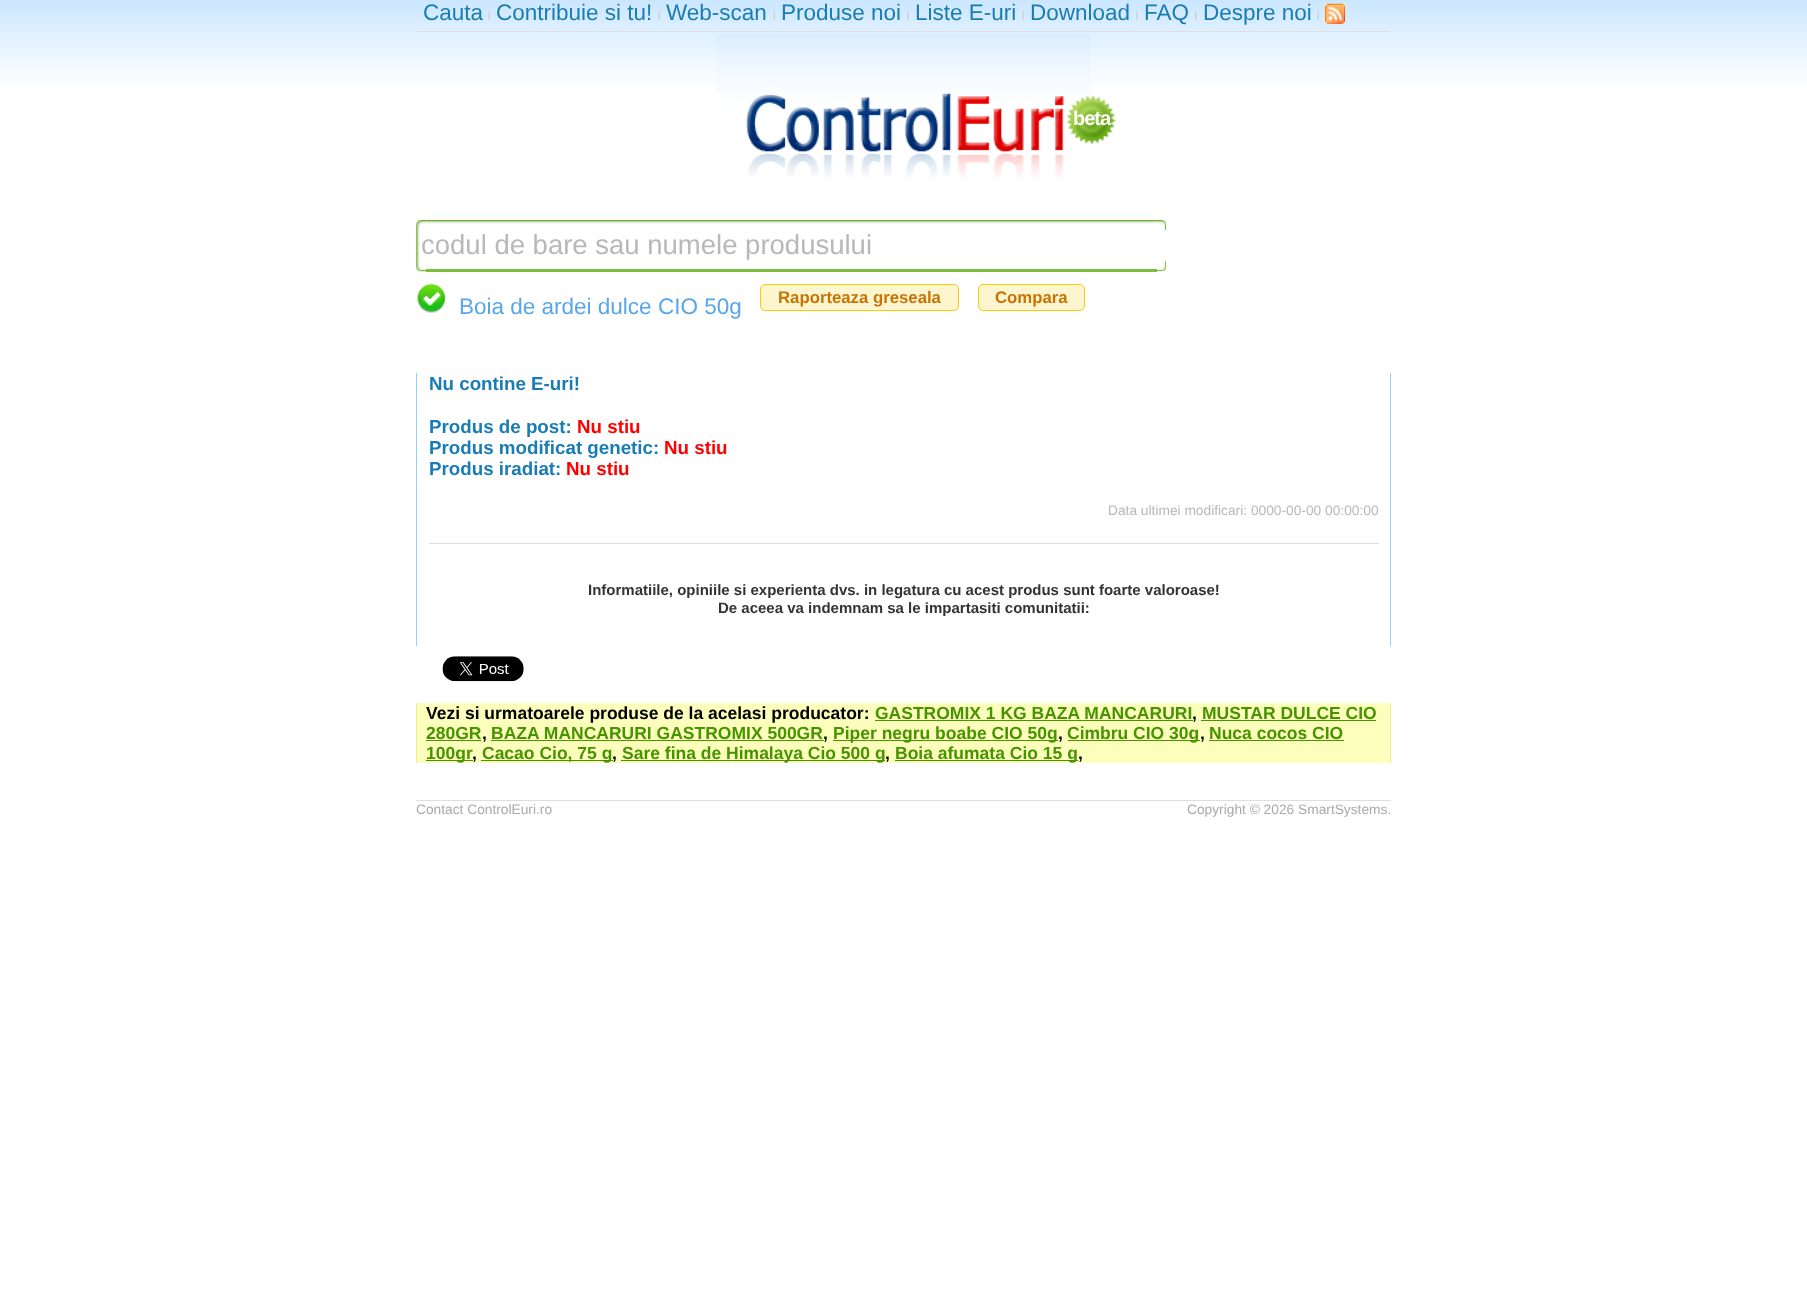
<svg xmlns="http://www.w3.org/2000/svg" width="1807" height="1306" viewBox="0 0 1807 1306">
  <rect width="100%" height="100%" fill="rgb(255,255,255)"/>
  <image x="0" y="0" width="1807" height="84" href="pic1.png"/>
  <rect x="416" y="31" width="975" height="1" fill="rgb(222,222,222)"/>
  <text x="423" y="20" font-family="Liberation Sans" font-size="22.5" fill="rgb(25,124,180)">Cauta</text>
  <image x="488" y="11" width="2" height="9" href="pic2.png"/>
  <text x="496" y="20" font-family="Liberation Sans" font-size="22.5" fill="rgb(25,124,180)">Contribuie si tu!</text>
  <image x="658" y="11" width="2" height="9" href="pic2.png"/>
  <text x="666" y="20" font-family="Liberation Sans" font-size="22.5" fill="rgb(25,124,180)">Web-scan</text>
  <image x="773" y="11" width="2" height="9" href="pic2.png"/>
  <text x="781" y="20" font-family="Liberation Sans" font-size="22.5" fill="rgb(25,124,180)">Produse noi</text>
  <image x="907" y="11" width="2" height="9" href="pic3.png"/>
  <text x="915" y="20" font-family="Liberation Sans" font-size="22.5" fill="rgb(25,124,180)">Liste E-uri</text>
  <image x="1022" y="11" width="2" height="9" href="pic3.png"/>
  <text x="1030" y="20" font-family="Liberation Sans" font-size="22.5" fill="rgb(25,124,180)">Download</text>
  <image x="1136" y="11" width="2" height="9" href="pic4.png"/>
  <text x="1144" y="20" font-family="Liberation Sans" font-size="22.5" fill="rgb(25,124,180)">FAQ</text>
  <image x="1195" y="11" width="2" height="9" href="pic5.png"/>
  <text x="1203" y="20" font-family="Liberation Sans" font-size="22.5" fill="rgb(25,124,180)">Despre noi</text>
  <image x="1317" y="11" width="2" height="9" href="pic3.png"/>
  <image x="1325" y="3" width="20" height="21" href="pic6.png"/>
  <image x="716" y="34" width="375" height="144" href="pic7.png"/>
  <image x="1066" y="95" width="51" height="50" href="pic8.png"/>
  <text x="1073" y="125" font-family="Liberation Sans" font-size="20" font-weight="bold" letter-spacing="-1" fill="rgb(255,255,255)">beta</text>
  <image x="416" y="220" width="11" height="10" href="pic9.png"/>
  <image x="1156" y="220" width="11" height="10" href="pic10.png"/>
  <image x="426" y="220" width="731" height="4" href="pic11.png"/>
  <image x="416" y="230" width="4" height="32" href="pic12.png"/>
  <text x="421" y="254" font-family="Liberation Sans" font-size="27.5" fill="rgb(184,184,184)">codul de bare sau numele produsului</text>
  <image x="416" y="261" width="11" height="11" href="pic13.png"/>
  <image x="1156" y="261" width="11" height="11" href="pic14.png"/>
  <rect x="426" y="269" width="731" height="3" fill="rgb(122,190,59)"/>
  <image x="417" y="283" width="29" height="30" href="pic15.png"/>
  <text x="459" y="314" font-family="Liberation Sans" font-size="22.5" fill="rgb(89,166,232)">Boia de ardei dulce CIO 50g</text>
  <rect x="760.5" y="284.5" width="198" height="26" rx="4.5" fill="rgb(253,245,206)" stroke="rgb(251,203,9)"/>
  <text x="778" y="303" font-family="Liberation Sans" font-size="16.75" font-weight="bold" fill="rgb(199,116,5)">Raporteaza greseala</text>
  <rect x="978.5" y="284.5" width="106" height="26" rx="4.5" fill="rgb(253,245,206)" stroke="rgb(251,203,9)"/>
  <text x="995" y="303" font-family="Liberation Sans" font-size="16.75" font-weight="bold" fill="rgb(199,116,5)">Compara</text>
  <rect x="1390" y="373" width="1" height="273" fill="rgb(152,207,255)"/>
  <rect x="416" y="373" width="1" height="273" fill="rgb(152,207,255)"/>
  <g font-family="Liberation Sans" font-size="18.75" font-weight="bold" fill="rgb(25,124,180)">
    <text x="429" y="390">Nu contine E-uri!</text>
    <text x="429" y="433">Produs de post:</text>
  </g>
  <text x="577" y="433" font-family="Liberation Sans" font-size="18.75" font-weight="bold" fill="rgb(255,0,0)">Nu stiu</text>
  <text x="429" y="454" font-family="Liberation Sans" font-size="18.75" font-weight="bold" fill="rgb(25,124,180)">Produs modificat genetic:</text>
  <text x="664" y="454" font-family="Liberation Sans" font-size="18.75" font-weight="bold" fill="rgb(255,0,0)">Nu stiu</text>
  <text x="429" y="475" font-family="Liberation Sans" font-size="18.75" font-weight="bold" fill="rgb(25,124,180)">Produs iradiat:</text>
  <text x="566" y="475" font-family="Liberation Sans" font-size="18.75" font-weight="bold" fill="rgb(255,0,0)">Nu stiu</text>
  <text x="1108" y="515" font-family="Liberation Sans" font-size="13.75" fill="rgb(184,184,184)">Data ultimei modificari: 0000-00-00 00:00:00</text>
  <rect x="429" y="543" width="950" height="1" fill="rgb(222,222,222)"/>
  <g font-family="Liberation Sans" font-size="15" font-weight="bold" fill="rgb(51,51,51)">
    <text x="588" y="595">Informatiile, opiniile si experienta dvs. in legatura cu acest produs sunt foarte valoroase!</text>
    <text x="718" y="613">De aceea va indemnam sa le impartasiti comunitatii:</text>
  </g>
  <image x="442" y="656" width="82" height="26" href="pic16.png"/>
  <rect x="417" y="703" width="973" height="60" fill="rgb(251,255,187)"/>
  <rect x="1390" y="703" width="1" height="60" fill="rgb(235,240,147)"/>
  <rect x="416" y="703" width="1" height="60" fill="rgb(235,240,147)"/>
  <text x="426" y="719" font-family="Liberation Sans" font-size="17.5" font-weight="bold" fill="rgb(0,0,0)">Vezi si urmatoarele produse de la acelasi producator:</text>
  <text x="875" y="719" font-family="Liberation Sans" font-size="17.5" font-weight="bold" fill="rgb(72,147,0)">GASTROMIX 1 KG BAZA MANCARURI</text>
  <rect x="875" y="720" width="318" height="1" fill="rgb(72,147,0)"/>
  <text x="1192" y="719" font-family="Liberation Sans" font-size="17.5" font-weight="bold" fill="rgb(0,0,0)">,</text>
  <text x="1202" y="719" font-family="Liberation Sans" font-size="17.5" font-weight="bold" fill="rgb(72,147,0)">MUSTAR DULCE CIO</text>
  <rect x="1201" y="720" width="175" height="1" fill="rgb(72,147,0)"/>
  <text x="426" y="739" font-family="Liberation Sans" font-size="17.5" font-weight="bold" fill="rgb(72,147,0)">280GR</text>
  <rect x="426" y="740" width="55" height="1" fill="rgb(72,147,0)"/>
  <text x="482" y="739" font-family="Liberation Sans" font-size="17.5" font-weight="bold" fill="rgb(0,0,0)">,</text>
  <text x="491" y="739" font-family="Liberation Sans" font-size="17.5" font-weight="bold" fill="rgb(72,147,0)">BAZA MANCARURI GASTROMIX 500GR</text>
  <rect x="491" y="740" width="333" height="1" fill="rgb(72,147,0)"/>
  <text x="823" y="739" font-family="Liberation Sans" font-size="17.5" font-weight="bold" fill="rgb(0,0,0)">,</text>
  <rect x="833" y="740" width="225" height="1" fill="rgb(72,147,0)"/>
  <text x="833" y="739" font-family="Liberation Sans" font-size="17.5" font-weight="bold" fill="rgb(72,147,0)">Piper negru boabe CIO 50g</text>
  <text x="1058" y="739" font-family="Liberation Sans" font-size="17.5" font-weight="bold" fill="rgb(0,0,0)">,</text>
  <rect x="1068" y="740" width="132" height="1" fill="rgb(72,147,0)"/>
  <text x="1067" y="739" font-family="Liberation Sans" font-size="17.5" font-weight="bold" fill="rgb(72,147,0)">Cimbru CIO 30g</text>
  <text x="1200" y="739" font-family="Liberation Sans" font-size="17.5" font-weight="bold" fill="rgb(0,0,0)">,</text>
  <text x="1209" y="739" font-family="Liberation Sans" font-size="17.5" font-weight="bold" fill="rgb(72,147,0)">Nuca cocos CIO</text>
  <rect x="1209" y="740" width="135" height="1" fill="rgb(72,147,0)"/>
  <rect x="426" y="760" width="47" height="1" fill="rgb(72,147,0)"/>
  <text x="426" y="759" font-family="Liberation Sans" font-size="17.5" font-weight="bold" fill="rgb(72,147,0)">100gr</text>
  <text x="472" y="759" font-family="Liberation Sans" font-size="17.5" font-weight="bold" fill="rgb(0,0,0)">,</text>
  <rect x="481" y="760" width="132" height="1" fill="rgb(72,147,0)"/>
  <text x="482" y="759" font-family="Liberation Sans" font-size="17.5" font-weight="bold" fill="rgb(72,147,0)">Cacao Cio, 75 g</text>
  <text x="612" y="759" font-family="Liberation Sans" font-size="17.5" font-weight="bold" fill="rgb(0,0,0)">,</text>
  <rect x="621" y="760" width="264" height="1" fill="rgb(72,147,0)"/>
  <text x="622" y="759" font-family="Liberation Sans" font-size="17.5" font-weight="bold" fill="rgb(72,147,0)">Sare fina de Himalaya Cio 500 g</text>
  <text x="885" y="759" font-family="Liberation Sans" font-size="17.5" font-weight="bold" fill="rgb(0,0,0)">,</text>
  <rect x="895" y="760" width="183" height="1" fill="rgb(72,147,0)"/>
  <text x="895" y="759" font-family="Liberation Sans" font-size="17.5" font-weight="bold" fill="rgb(72,147,0)">Boia afumata Cio 15 g</text>
  <text x="1078" y="759" font-family="Liberation Sans" font-size="17.5" font-weight="bold" fill="rgb(0,0,0)">,</text>
  <rect x="416" y="800" width="975" height="1" fill="rgb(222,222,222)"/>
  <g font-family="Liberation Sans" font-size="13.75" fill="rgb(170,170,170)">
    <text x="416" y="814">Contact ControlEuri.ro</text>
    <text x="1187" y="814">Copyright © 2026 SmartSystems.</text>
  </g>
</svg>
